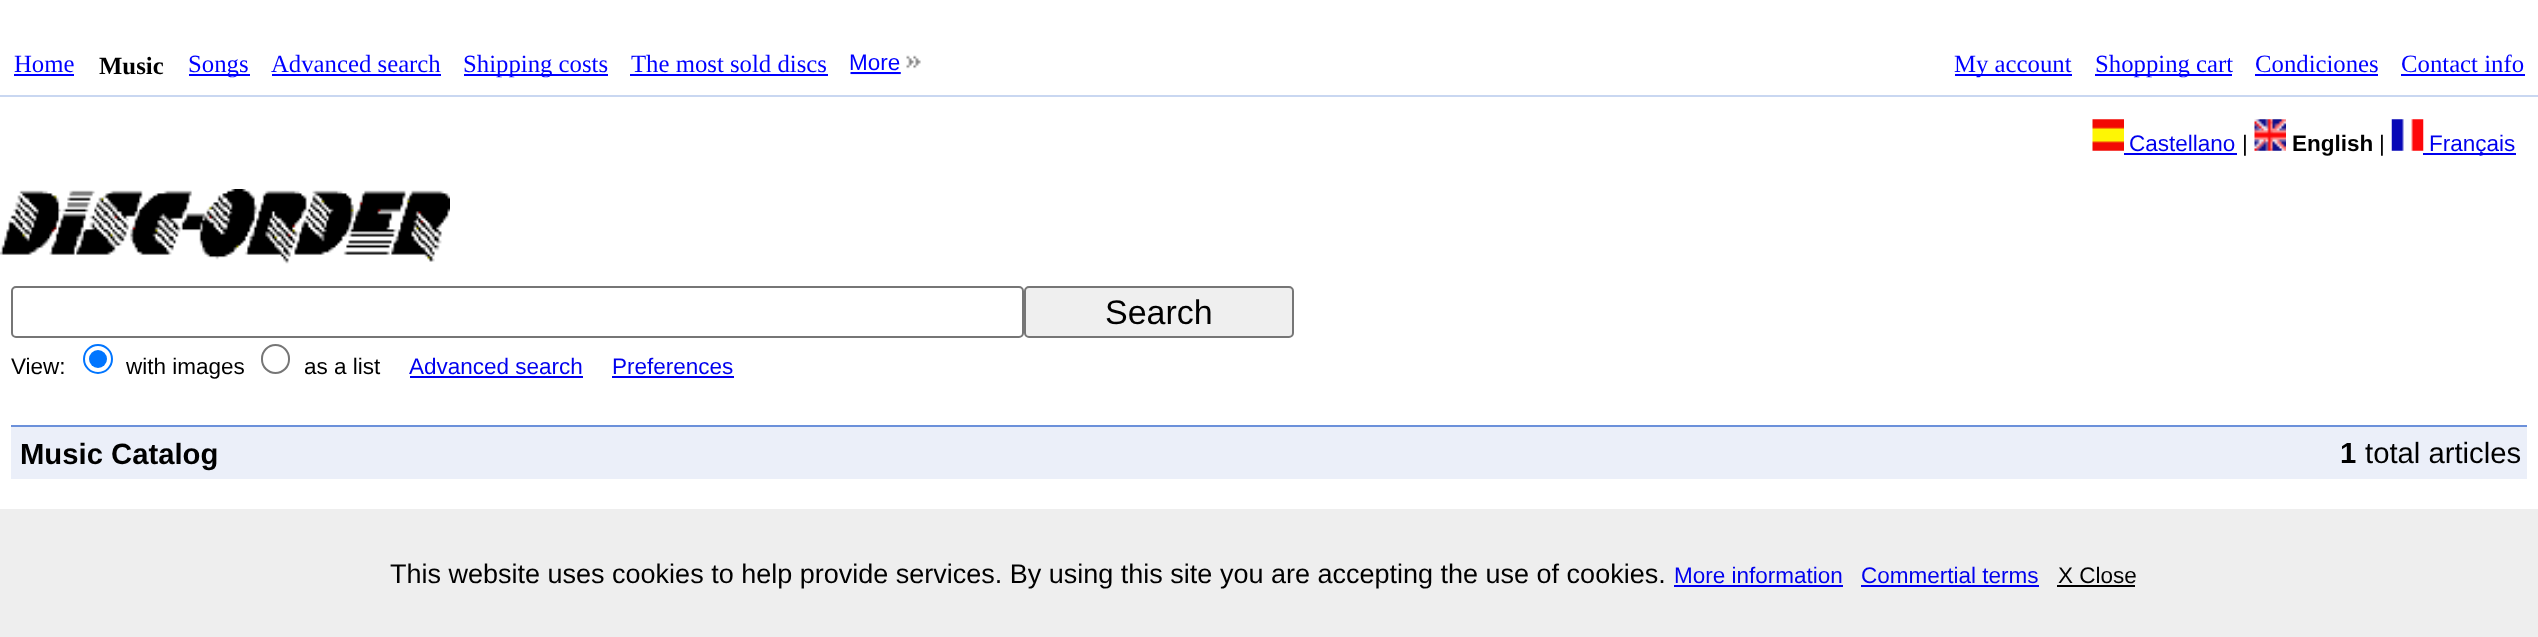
<svg xmlns="http://www.w3.org/2000/svg" width="2538" height="637" viewBox="0 0 2538 637">
  <rect width="100%" height="100%" fill="rgb(255,255,255)"/>
  <rect x="0" y="95" width="2538" height="2" fill="rgb(201,215,241)"/>
  <text x="14" y="72" font-family="Liberation Serif" font-size="24.75" fill="rgb(0,0,255)">Home</text>
  <rect x="14" y="74" width="60" height="2" fill="rgb(0,0,255)"/>
  <text x="99" y="74" font-family="Liberation Serif" font-size="24.75" font-weight="bold" fill="rgb(0,0,0)">Music</text>
  <rect x="189" y="74" width="61" height="2" fill="rgb(0,0,255)"/>
  <g font-family="Liberation Serif" font-size="24.75" fill="rgb(0,0,255)">
    <text x="188" y="72">Songs</text>
    <text x="271" y="72">Advanced search</text>
  </g>
  <rect x="272" y="74" width="169" height="2" fill="rgb(0,0,255)"/>
  <rect x="464" y="74" width="144" height="2" fill="rgb(0,0,255)"/>
  <g font-family="Liberation Serif" font-size="24.75" fill="rgb(0,0,255)">
    <text x="463" y="72">Shipping costs</text>
    <text x="631" y="72">The most sold discs</text>
  </g>
  <rect x="630" y="74" width="198" height="2" fill="rgb(0,0,255)"/>
  <image x="850" y="55" width="71" height="20" href="pic1.png"/>
  <text x="849" y="70" font-family="Liberation Sans" font-size="22.5" fill="rgb(0,0,255)">More</text>
  <rect x="1955" y="74" width="117" height="2" fill="rgb(0,0,255)"/>
  <text x="1954" y="72" font-family="Liberation Serif" font-size="24.75" fill="rgb(0,0,255)">My account</text>
  <rect x="2095" y="74" width="137" height="2" fill="rgb(0,0,255)"/>
  <g font-family="Liberation Serif" font-size="24.75" fill="rgb(0,0,255)">
    <text x="2095" y="72">Shopping cart</text>
    <text x="2255" y="72">Condiciones</text>
  </g>
  <rect x="2255" y="74" width="123" height="2" fill="rgb(0,0,255)"/>
  <text x="2401" y="72" font-family="Liberation Serif" font-size="24.75" fill="rgb(0,0,255)">Contact info</text>
  <rect x="2401" y="74" width="124" height="2" fill="rgb(0,0,255)"/>
  <image x="2092" y="119" width="32" height="32" href="pic2.png"/>
  <text x="2129" y="151" font-family="Liberation Sans" font-size="22.5" fill="rgb(0,0,238)">Castellano</text>
  <rect x="2124" y="153" width="113" height="2" fill="rgb(0,0,238)"/>
  <text x="2242" y="151" font-family="Liberation Sans" font-size="22.5" fill="rgb(0,0,0)">|</text>
  <image x="2254" y="119" width="32" height="32" href="pic3.png"/>
  <text x="2292" y="151" font-family="Liberation Sans" font-size="22.5" font-weight="bold" fill="rgb(0,0,0)">English</text>
  <text x="2379" y="151" font-family="Liberation Sans" font-size="22.5" fill="rgb(0,0,0)">|</text>
  <image x="2391" y="119" width="33" height="32" href="pic4.png"/>
  <rect x="2423" y="153" width="93" height="2" fill="rgb(0,0,238)"/>
  <text x="2429" y="151" font-family="Liberation Sans" font-size="22.5" fill="rgb(0,0,238)">Français</text>
  <image x="0" y="189" width="450" height="75" href="pic5.png"/>
  <rect x="12" y="287" width="1011" height="50" rx="4" fill="none" stroke="rgb(118,118,118)" stroke-width="2"/>
  <rect x="1025" y="287" width="268" height="50" rx="4" fill="rgb(239,239,239)" stroke="rgb(118,118,118)" stroke-width="2"/>
  <text x="1105" y="324" font-family="Liberation Sans" font-size="34" fill="rgb(0,0,0)">Search</text>
  <text x="11" y="374" font-family="Liberation Sans" font-size="22.5" fill="rgb(0,0,0)">View:</text>
  <circle cx="98" cy="359" r="14" fill="none" stroke="rgb(0,117,255)" stroke-width="2"/>
  <circle cx="98" cy="359" r="9" fill="rgb(0,117,255)"/>
  <text x="126" y="374" font-family="Liberation Sans" font-size="22.5" fill="rgb(0,0,0)">with images</text>
  <rect x="262" y="345" width="27" height="28" rx="13.5" fill="none" stroke="rgb(118,118,118)" stroke-width="2"/>
  <text x="304" y="374" font-family="Liberation Sans" font-size="22.5" fill="rgb(0,0,0)">as a list</text>
  <text x="409" y="374" font-family="Liberation Sans" font-size="22.5" fill="rgb(0,0,238)">Advanced search</text>
  <rect x="410" y="376" width="173" height="2" fill="rgb(0,0,238)"/>
  <text x="612" y="374" font-family="Liberation Sans" font-size="22.5" fill="rgb(0,0,238)">Preferences</text>
  <rect x="612" y="376" width="122" height="2" fill="rgb(0,0,238)"/>
  <rect x="11" y="427" width="2516" height="52" fill="rgb(235,239,249)"/>
  <rect x="11" y="425" width="2516" height="2" fill="rgb(107,144,218)"/>
  <g font-family="Liberation Sans" font-size="29.25" font-weight="bold" fill="rgb(0,0,0)">
    <text x="20" y="464">Music Catalog</text>
    <text x="2340" y="463">1</text>
  </g>
  <text x="2365" y="463" font-family="Liberation Sans" font-size="29.25" fill="rgb(0,0,0)">total articles</text>
  <rect x="0" y="509" width="2538" height="128" fill="rgb(238,238,238)"/>
  <text x="390" y="583" font-family="Liberation Sans" font-size="27" fill="rgb(0,0,0)">This website uses cookies to help provide services. By using this site you are accepting the use of cookies.</text>
  <text x="1674" y="583" font-family="Liberation Sans" font-size="22.5" fill="rgb(0,0,238)">More information</text>
  <rect x="1674" y="585" width="169" height="2" fill="rgb(0,0,238)"/>
  <text x="1861" y="583" font-family="Liberation Sans" font-size="22.5" fill="rgb(0,0,238)">Commertial terms</text>
  <rect x="1861" y="585" width="178" height="2" fill="rgb(0,0,238)"/>
  <text x="2058" y="583" font-family="Liberation Sans" font-size="22.5" fill="rgb(0,0,0)">X Close</text>
  <rect x="2057" y="585" width="78" height="2" fill="rgb(0,0,0)"/>
</svg>
